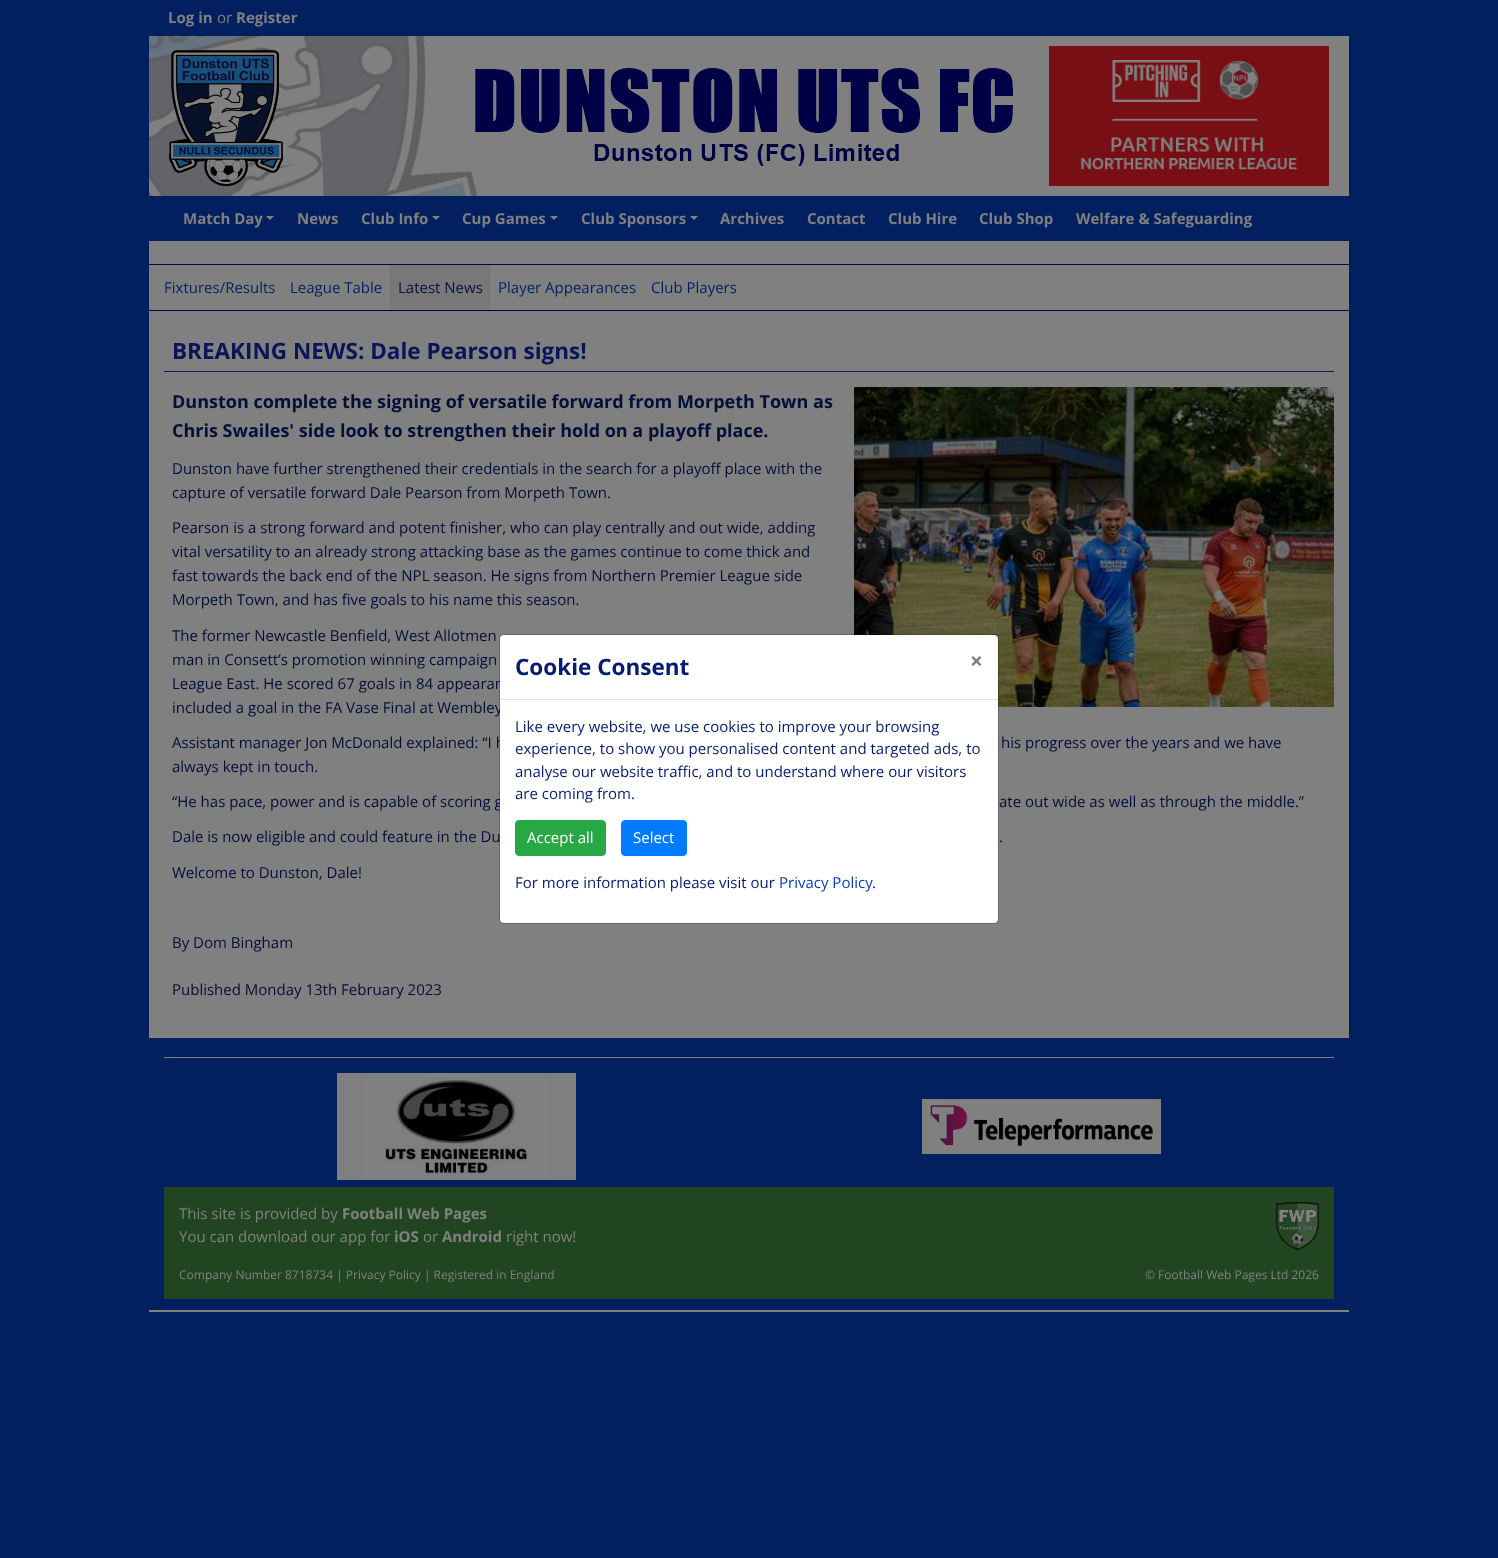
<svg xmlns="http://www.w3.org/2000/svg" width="1498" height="1558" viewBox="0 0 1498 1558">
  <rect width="100%" height="100%" fill="rgb(2,32,95)"/>
  <text x="168" y="23" font-family="Open Sans" font-size="15" font-weight="bold" fill="rgb(128,128,128)">Log in</text>
  <text x="217" y="23" font-family="Open Sans" font-size="15" fill="rgb(128,128,128)">or</text>
  <text x="236" y="23" font-family="Open Sans" font-size="15" font-weight="bold" fill="rgb(128,128,128)">Register</text>
  <rect x="149" y="36" width="1200" height="1002" fill="rgb(128,128,128)"/>
  <image x="149" y="36" width="864" height="160" href="pic1.png"/>
  <image x="169" y="50" width="114" height="136" href="pic2.png"/>
  <image x="1049" y="46" width="280" height="140" href="pic3.png"/>
  <rect x="149" y="196" width="1200" height="45" fill="rgb(2,32,95)"/>
  <text x="183" y="224" font-family="Open Sans" font-size="15" font-weight="bold" fill="rgb(128,128,128)">Match Day</text>
  <path d="M266 216H274L270 220Z" fill="rgb(128,128,128)"/>
  <g font-family="Open Sans" font-size="15" font-weight="bold" fill="rgb(128,128,128)">
    <text x="297" y="224">News</text>
    <text x="361" y="224">Club Info</text>
  </g>
  <path d="M432 216H440L436 220Z" fill="rgb(128,128,128)"/>
  <text x="462" y="224" font-family="Open Sans" font-size="15" font-weight="bold" fill="rgb(128,128,128)">Cup Games</text>
  <path d="M550 216H558L554 220Z" fill="rgb(128,128,128)"/>
  <text x="581" y="224" font-family="Open Sans" font-size="15" font-weight="bold" fill="rgb(128,128,128)">Club Sponsors</text>
  <path d="M690 216H698L694 220Z" fill="rgb(128,128,128)"/>
  <g font-family="Open Sans" font-size="15" font-weight="bold" fill="rgb(128,128,128)">
    <text x="720" y="224">Archives</text>
    <text x="807" y="224">Contact</text>
    <text x="888" y="224">Club Hire</text>
    <text x="979" y="224">Club Shop</text>
    <text x="1076" y="224">Welfare &amp; Safeguarding</text>
  </g>
  <rect x="149" y="264" width="1200" height="1" fill="rgb(9,7,70)"/>
  <rect x="149" y="310" width="1200" height="1" fill="rgb(9,7,70)"/>
  <g font-family="Open Sans" font-size="15" fill="rgb(2,32,95)">
    <text x="164" y="293">Fixtures/Results</text>
    <text x="290" y="293">League Table</text>
  </g>
  <rect x="390" y="265" width="100" height="45" fill="rgb(120,120,120)"/>
  <text x="398" y="293" font-family="Open Sans" font-size="15" fill="rgb(3,18,71)">Latest News</text>
  <g font-family="Open Sans" font-size="15" fill="rgb(2,32,95)">
    <text x="498" y="293">Player Appearances</text>
    <text x="651" y="293">Club Players</text>
  </g>
  <rect x="164" y="371" width="1170" height="1" fill="rgb(2,32,95)"/>
  <text x="172" y="359" font-family="Open Sans" font-size="22.5" font-weight="bold" fill="rgb(10,20,89)">BREAKING NEWS: Dale Pearson signs!</text>
  <g font-family="Open Sans" font-size="18" font-weight="bold" fill="rgb(3,14,57)">
    <text>
      <tspan x="172" y="408">Dunston complete the signing of versatile forward from Morpeth Town as</tspan>
      <tspan x="172" y="437">Chris Swailes' side look to strengthen their hold on a playoff place.</tspan>
    </text>
  </g>
  <image x="854" y="387" width="480" height="320" href="pic4.png"/>
  <g font-family="Open Sans" font-size="15" fill="rgb(3,14,57)">
    <text>
      <tspan x="172" y="474">Dunston have further strengthened their credentials in the search for a playoff place with the</tspan>
      <tspan x="172" y="498">capture of versatile forward Dale Pearson from Morpeth Town.</tspan>
    </text>
    <text>
      <tspan x="172" y="533">Pearson is a strong forward and potent finisher, who can play centrally and out wide, adding</tspan>
      <tspan x="172" y="557">vital versatility to an already strong attacking base as the games continue to come thick and</tspan>
      <tspan x="172" y="581">fast towards the back end of the NPL season. He signs from Northern Premier League side</tspan>
      <tspan x="172" y="605">Morpeth Town, and has five goals to his name this season.</tspan>
    </text>
    <text>
      <tspan x="172" y="641">The former Newcastle Benfield, West Allotmen</tspan>
      <tspan x="172" y="665">man in Consett’s promotion winning campaign</tspan>
      <tspan x="172" y="689">League East. He scored 67 goals in 84 appearan</tspan>
      <tspan x="172" y="713">included a goal in the FA Vase Final at Wembley</tspan>
    </text>
    <text x="172" y="748">Assistant manager Jon McDonald explained: “I h</text>
    <text x="1001" y="748">his progress over the years and we have</text>
    <text x="172" y="772">always kept in touch.</text>
    <text x="172" y="807">“He has pace, power and is capable of scoring g</text>
    <text x="999" y="807">ate out wide as well as through the middle.”</text>
    <text x="172" y="842">Dale is now eligible and could feature in the Du</text>
    <text x="999" y="842">.</text>
    <text x="172" y="878">Welcome to Dunston, Dale!</text>
    <text x="172" y="948">By Dom Bingham</text>
    <text x="172" y="995">Published Monday 13th February 2023</text>
  </g>
  <rect x="149" y="1310" width="1200" height="2" fill="rgb(128,128,128)"/>
  <rect x="164" y="1057" width="1170" height="1" fill="rgb(128,128,128)"/>
  <image x="337" y="1073" width="239" height="107" href="pic5.png"/>
  <image x="922" y="1099" width="239" height="55" href="pic6.png"/>
  <rect x="164" y="1187" width="1170" height="112" fill="rgb(33,69,33)"/>
  <text x="179" y="1219" font-family="Open Sans" font-size="15" fill="rgb(128,128,128)">This site is provided by</text>
  <text x="342" y="1219" font-family="Open Sans" font-size="15" font-weight="bold" fill="rgb(128,128,128)">Football Web Pages</text>
  <text x="179" y="1242" font-family="Open Sans" font-size="15" fill="rgb(128,128,128)">You can download our app for</text>
  <text x="394" y="1242" font-family="Open Sans" font-size="15" font-weight="bold" fill="rgb(128,128,128)">iOS</text>
  <text x="423" y="1242" font-family="Open Sans" font-size="15" fill="rgb(128,128,128)">or</text>
  <text x="442" y="1242" font-family="Open Sans" font-size="15" font-weight="bold" fill="rgb(128,128,128)">Android</text>
  <text x="506" y="1242" font-family="Open Sans" font-size="15" fill="rgb(128,128,128)">right now!</text>
  <image x="1276" y="1202" width="43" height="48" href="pic7.png"/>
  <g font-family="Open Sans" font-size="12" fill="rgb(128,128,128)">
    <text x="179" y="1279">Company Number 8718734 | Privacy Policy | Registered in England</text>
    <text x="1145" y="1279">© Football Web Pages Ltd 2026</text>
  </g>
  <rect x="500" y="635" width="498" height="288" rx="4" fill="rgb(255,255,255)"/>
  <rect x="499.5" y="634.5" width="499" height="289" rx="4.5" fill="none" stroke="rgba(0,0,0,0.2)"/>
  <rect x="500" y="699" width="498" height="1" fill="rgb(222,226,230)"/>
  <text x="515" y="675" font-family="Open Sans" font-size="22.5" font-weight="bold" fill="rgb(6,27,113)">Cookie Consent</text>
  <text x="970" y="669" font-family="Open Sans" font-size="22.5" font-weight="bold" fill="rgb(128,128,128)">×</text>
  <g font-family="Open Sans" font-size="15" fill="rgb(6,27,113)">
    <text>
      <tspan x="515" y="732">Like every website, we use cookies to improve your browsing</tspan>
      <tspan x="515" y="754">experience, to show you personalised content and targeted ads, to</tspan>
      <tspan x="515" y="777">analyse our website traffic, and to understand where our visitors</tspan>
      <tspan x="515" y="799">are coming from.</tspan>
    </text>
  </g>
  <rect x="515.5" y="820.5" width="90" height="35" rx="3.5" fill="rgb(40,167,69)" stroke="rgb(40,167,69)"/>
  <text x="527" y="843" font-family="Open Sans" font-size="15" fill="rgb(255,255,255)">Accept all</text>
  <rect x="621.5" y="820.5" width="65" height="35" rx="3.5" fill="rgb(0,123,255)" stroke="rgb(0,123,255)"/>
  <text x="633" y="843" font-family="Open Sans" font-size="15" fill="rgb(255,255,255)">Select</text>
  <text x="515" y="888" font-family="Open Sans" font-size="15" fill="rgb(6,27,113)">For more information please visit our</text>
  <text x="779" y="888" font-family="Open Sans" font-size="15" fill="rgb(3,63,189)">Privacy Policy</text>
  <text x="872" y="888" font-family="Open Sans" font-size="15" fill="rgb(6,27,113)">.</text>
</svg>
